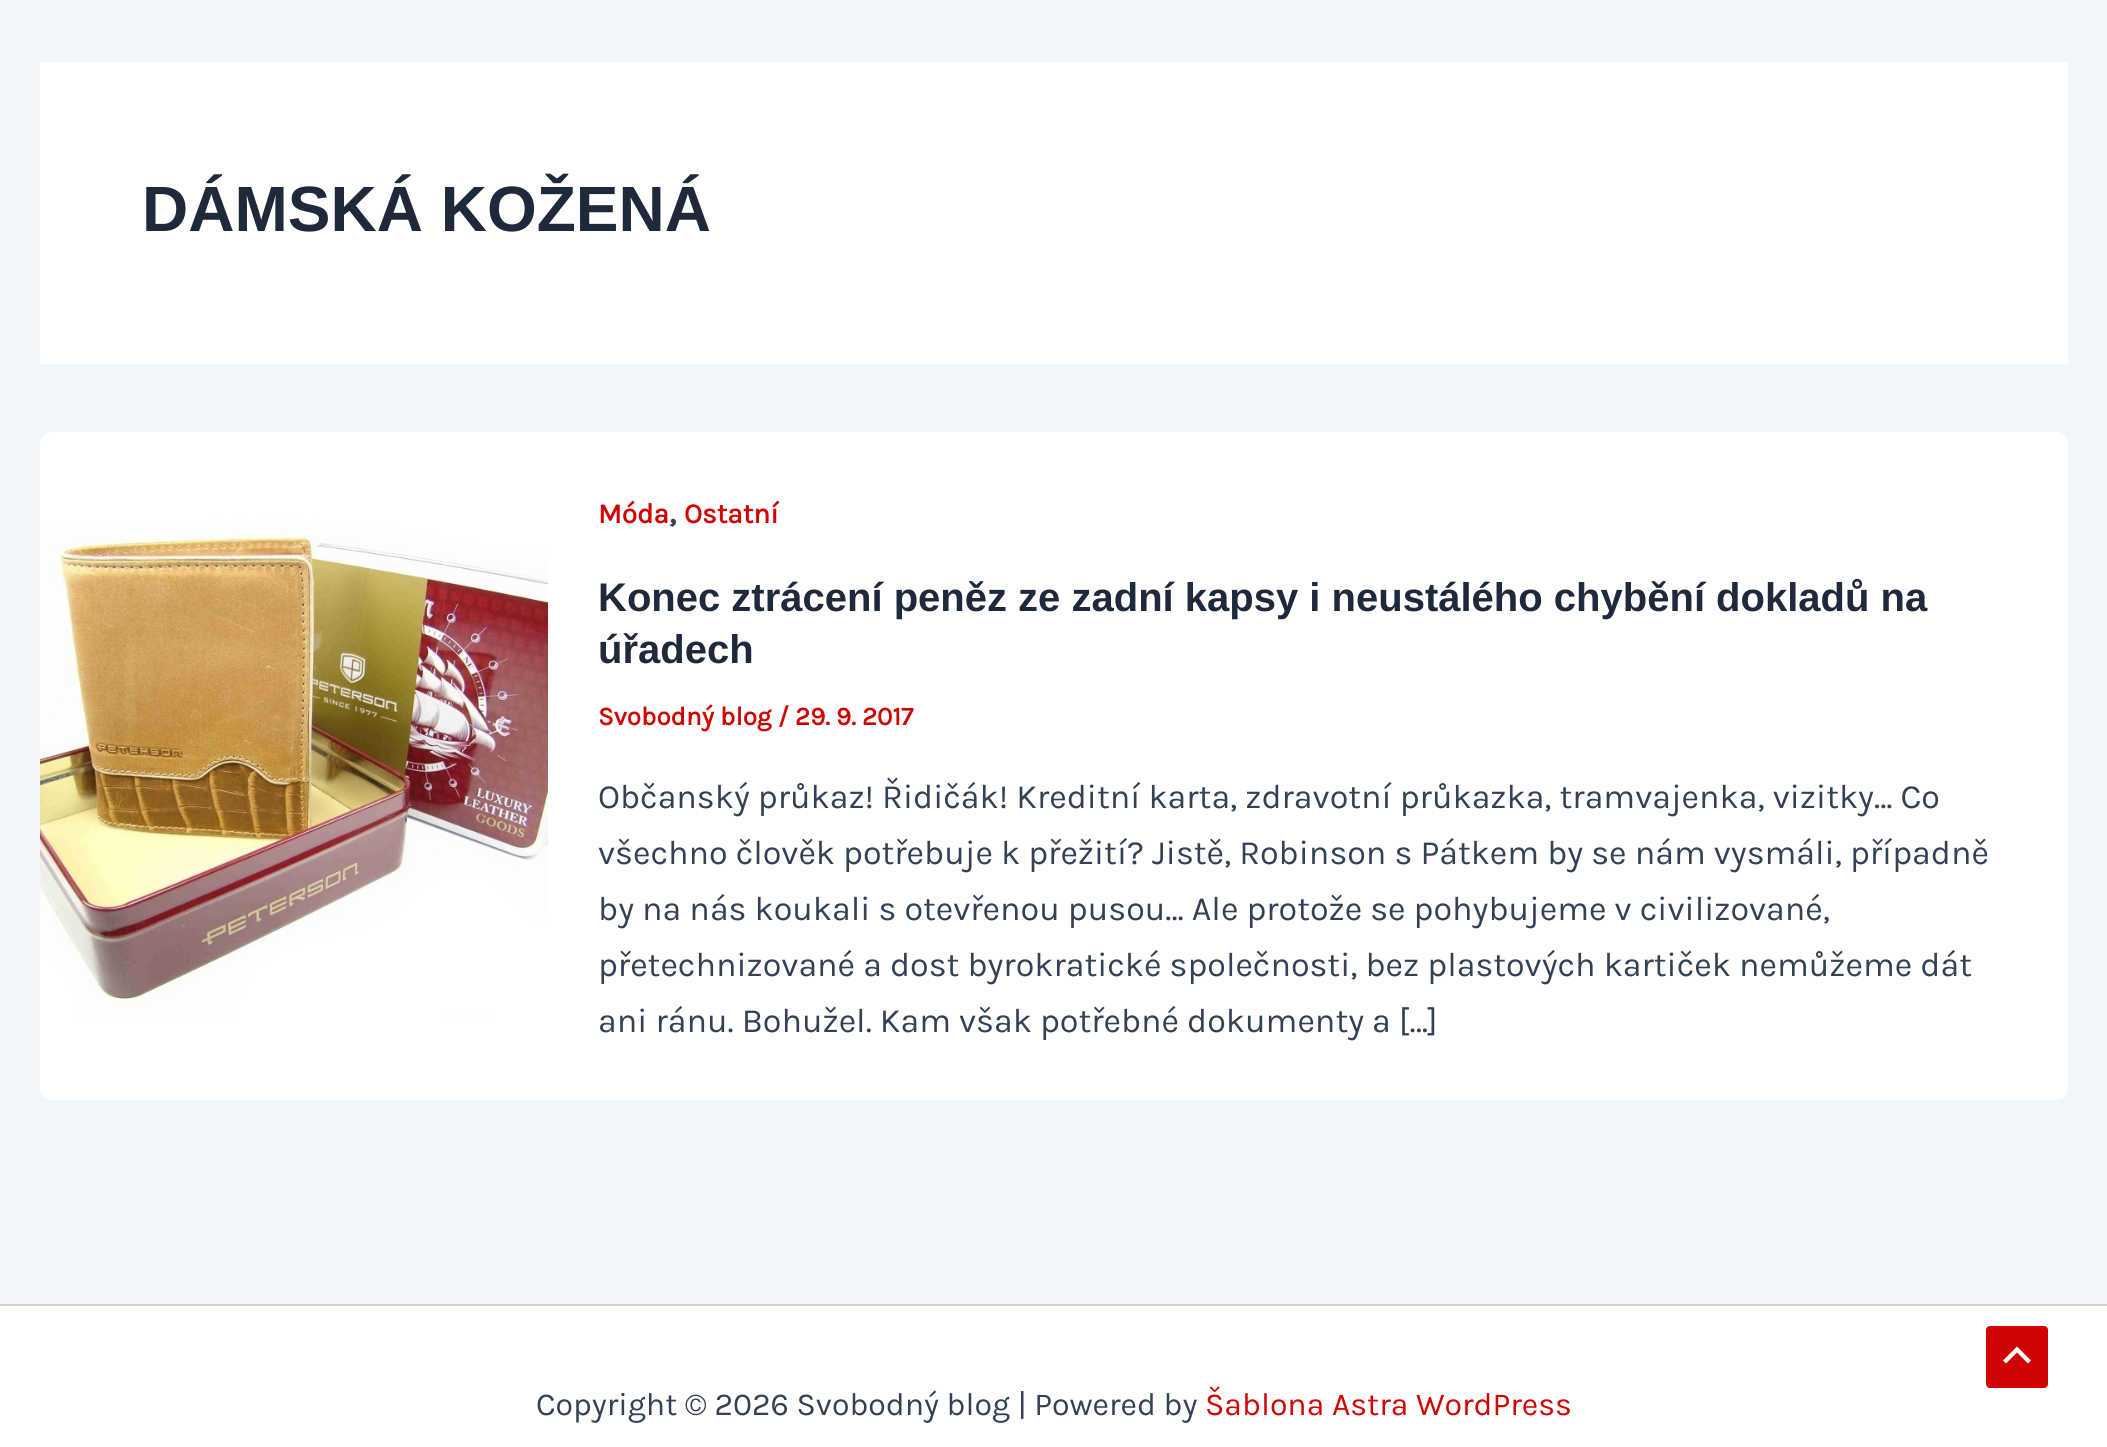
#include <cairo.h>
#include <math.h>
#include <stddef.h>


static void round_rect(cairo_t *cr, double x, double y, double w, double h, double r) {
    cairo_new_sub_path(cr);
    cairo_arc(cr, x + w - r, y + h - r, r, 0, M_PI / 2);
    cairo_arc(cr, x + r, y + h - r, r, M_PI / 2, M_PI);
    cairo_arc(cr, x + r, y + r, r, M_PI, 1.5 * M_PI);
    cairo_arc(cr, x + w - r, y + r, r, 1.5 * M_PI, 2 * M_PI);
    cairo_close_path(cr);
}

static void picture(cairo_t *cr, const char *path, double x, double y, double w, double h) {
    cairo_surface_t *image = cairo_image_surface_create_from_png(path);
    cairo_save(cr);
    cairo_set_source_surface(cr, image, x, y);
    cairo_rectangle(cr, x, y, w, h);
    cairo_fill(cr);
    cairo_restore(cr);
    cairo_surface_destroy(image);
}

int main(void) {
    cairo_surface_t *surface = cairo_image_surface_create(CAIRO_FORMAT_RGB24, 2107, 1447);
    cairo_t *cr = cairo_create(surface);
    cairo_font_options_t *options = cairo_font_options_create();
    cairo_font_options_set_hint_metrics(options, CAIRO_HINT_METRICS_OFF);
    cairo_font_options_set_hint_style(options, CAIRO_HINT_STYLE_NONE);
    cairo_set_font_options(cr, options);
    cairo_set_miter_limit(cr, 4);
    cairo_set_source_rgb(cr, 0.941, 0.961, 0.98);
    cairo_paint(cr);
    cairo_set_source_rgb(cr, 1, 1, 1);
    cairo_rectangle(cr, 40, 62, 2028, 302);
    cairo_fill(cr);
    cairo_select_font_face(cr, "Liberation Sans", CAIRO_FONT_SLANT_NORMAL, CAIRO_FONT_WEIGHT_BOLD);
    cairo_set_font_size(cr, 64);
    cairo_set_source_rgb(cr, 0.118, 0.161, 0.231);
    cairo_move_to(cr, 142, 231);
    cairo_show_text(cr, "DÁMSKÁ KOŽENÁ");
    cairo_set_source_rgb(cr, 1, 1, 1);
    round_rect(cr, 40, 432, 2028, 668, 12);
    cairo_fill(cr);
    picture(cr, "img1.png", 40, 435, 508, 665);
    cairo_select_font_face(cr, "Karla", CAIRO_FONT_SLANT_NORMAL, CAIRO_FONT_WEIGHT_BOLD);
    cairo_set_font_size(cr, 28);
    cairo_set_source_rgb(cr, 0.82, 0.016, 0.016);
    cairo_move_to(cr, 598, 523);
    cairo_show_text(cr, "Móda");
    cairo_set_font_size(cr, 34);
    cairo_set_source_rgb(cr, 0.2, 0.255, 0.333);
    cairo_move_to(cr, 669, 523);
    cairo_show_text(cr, ",");
    cairo_set_font_size(cr, 28);
    cairo_set_source_rgb(cr, 0.82, 0.016, 0.016);
    cairo_move_to(cr, 684, 523);
    cairo_show_text(cr, "Ostatní");
    cairo_select_font_face(cr, "Liberation Sans", CAIRO_FONT_SLANT_NORMAL, CAIRO_FONT_WEIGHT_BOLD);
    cairo_set_font_size(cr, 40);
    cairo_set_source_rgb(cr, 0.118, 0.161, 0.231);
    cairo_move_to(cr, 598, 611);
    cairo_show_text(cr, "Konec ztrácení peněz ze zadní kapsy i neustálého chybění dokladů na");
    cairo_move_to(cr, 598, 663);
    cairo_show_text(cr, "úřadech");
    cairo_select_font_face(cr, "Karla", CAIRO_FONT_SLANT_NORMAL, CAIRO_FONT_WEIGHT_BOLD);
    cairo_set_font_size(cr, 26);
    cairo_set_source_rgb(cr, 0.82, 0.016, 0.016);
    cairo_move_to(cr, 598, 725);
    cairo_show_text(cr, "Svobodný blog / 29. 9. 2017");
    cairo_select_font_face(cr, "Karla", CAIRO_FONT_SLANT_NORMAL, CAIRO_FONT_WEIGHT_NORMAL);
    cairo_set_font_size(cr, 34);
    cairo_set_source_rgb(cr, 0.2, 0.255, 0.333);
    cairo_move_to(cr, 598, 808);
    cairo_show_text(cr, "Občanský průkaz! Řidičák! Kreditní karta, zdravotní průkazka, tramvajenka, vizitky… Co");
    cairo_move_to(cr, 598, 864);
    cairo_show_text(cr, "všechno člověk potřebuje k přežití? Jistě, Robinson s Pátkem by se nám vysmáli, případně");
    cairo_move_to(cr, 598, 920);
    cairo_show_text(cr, "by na nás koukali s otevřenou pusou… Ale protože se pohybujeme v civilizované,");
    cairo_move_to(cr, 598, 976);
    cairo_show_text(cr, "přetechnizované a dost byrokratické společnosti, bez plastových kartiček nemůžeme dát");
    cairo_move_to(cr, 598, 1032);
    cairo_show_text(cr, "ani ránu. Bohužel. Kam však potřebné dokumenty a […]");
    cairo_set_source_rgb(cr, 1, 1, 1);
    cairo_rectangle(cr, 0, 1306, 2107, 141);
    cairo_fill(cr);
    cairo_set_source_rgb(cr, 0.82, 0.835, 0.859);
    cairo_rectangle(cr, 0, 1304, 2107, 2);
    cairo_fill(cr);
    cairo_set_font_size(cr, 32);
    cairo_set_source_rgb(cr, 0.2, 0.255, 0.333);
    cairo_move_to(cr, 536, 1415);
    cairo_show_text(cr, "Copyright © 2026 Svobodný blog | Powered by");
    cairo_set_source_rgb(cr, 0.82, 0.016, 0.016);
    cairo_move_to(cr, 1205, 1415);
    cairo_show_text(cr, "Šablona Astra WordPress");
    round_rect(cr, 1986, 1326, 62, 62, 4);
    cairo_fill(cr);
    cairo_set_source_rgb(cr, 1, 1, 1);
    cairo_new_path(cr);
    cairo_move_to(cr, 2031, 1360.5);
    cairo_line_to(cr, 2017, 1346.5);
    cairo_line_to(cr, 2003, 1360.5);
    cairo_line_to(cr, 2006, 1363.5);
    cairo_line_to(cr, 2017, 1352.5);
    cairo_line_to(cr, 2028, 1363.5);
    cairo_close_path(cr);
    cairo_fill(cr);
    cairo_surface_write_to_png(surface, "page.png");
    cairo_font_options_destroy(options);
    cairo_destroy(cr);
    cairo_surface_destroy(surface);
    return 0;
}
